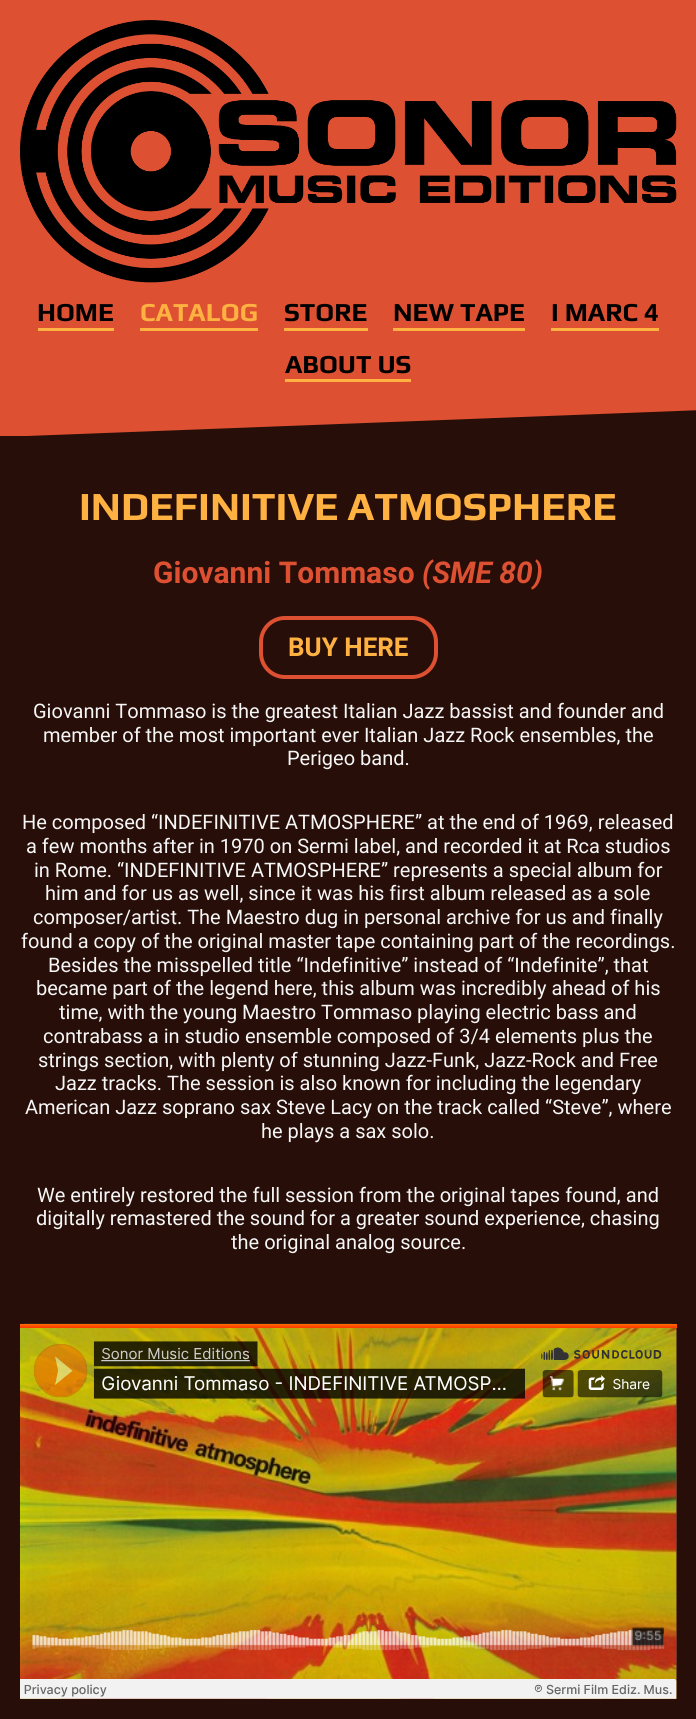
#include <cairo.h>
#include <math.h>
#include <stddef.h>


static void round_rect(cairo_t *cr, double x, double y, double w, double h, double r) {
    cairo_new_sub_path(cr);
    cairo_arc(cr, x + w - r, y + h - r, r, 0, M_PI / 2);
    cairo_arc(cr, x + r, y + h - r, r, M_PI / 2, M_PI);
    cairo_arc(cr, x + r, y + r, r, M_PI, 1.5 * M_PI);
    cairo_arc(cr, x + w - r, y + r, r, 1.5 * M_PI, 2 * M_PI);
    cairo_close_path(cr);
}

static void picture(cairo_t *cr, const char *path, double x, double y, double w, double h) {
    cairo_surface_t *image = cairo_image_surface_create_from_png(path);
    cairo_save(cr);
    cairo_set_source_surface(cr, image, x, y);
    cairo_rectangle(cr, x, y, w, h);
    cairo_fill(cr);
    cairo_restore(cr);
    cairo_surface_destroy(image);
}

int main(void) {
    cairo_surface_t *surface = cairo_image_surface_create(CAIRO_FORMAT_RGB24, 696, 1719);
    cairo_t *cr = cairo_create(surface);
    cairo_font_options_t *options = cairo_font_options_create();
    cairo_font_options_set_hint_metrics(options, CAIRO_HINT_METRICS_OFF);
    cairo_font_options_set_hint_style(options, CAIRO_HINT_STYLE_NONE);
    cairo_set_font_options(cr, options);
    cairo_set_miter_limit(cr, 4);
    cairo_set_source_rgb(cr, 0.867, 0.314, 0.196);
    cairo_paint(cr);
    picture(cr, "img1.png", 20, 20, 657, 263);
    cairo_select_font_face(cr, "Play", CAIRO_FONT_SLANT_NORMAL, CAIRO_FONT_WEIGHT_BOLD);
    cairo_set_font_size(cr, 26);
    cairo_set_source_rgb(cr, 0, 0, 0);
    cairo_move_to(cr, 37, 321);
    cairo_show_text(cr, "HOME");
    cairo_set_source_rgb(cr, 1, 0.698, 0.255);
    cairo_rectangle(cr, 38, 328, 76, 3);
    cairo_fill(cr);
    cairo_move_to(cr, 140, 321);
    cairo_show_text(cr, "CATALOG");
    cairo_rectangle(cr, 140, 328, 118, 3);
    cairo_fill(cr);
    cairo_set_source_rgb(cr, 0, 0, 0);
    cairo_move_to(cr, 284, 321);
    cairo_show_text(cr, "STORE");
    cairo_set_source_rgb(cr, 1, 0.698, 0.255);
    cairo_rectangle(cr, 284, 328, 84, 3);
    cairo_fill(cr);
    cairo_set_source_rgb(cr, 0, 0, 0);
    cairo_move_to(cr, 393, 321);
    cairo_show_text(cr, "NEW TAPE");
    cairo_set_source_rgb(cr, 1, 0.698, 0.255);
    cairo_rectangle(cr, 393, 328, 132, 3);
    cairo_fill(cr);
    cairo_set_source_rgb(cr, 0, 0, 0);
    cairo_move_to(cr, 551, 321);
    cairo_show_text(cr, "I MARC 4");
    cairo_set_source_rgb(cr, 1, 0.698, 0.255);
    cairo_rectangle(cr, 551, 328, 108, 3);
    cairo_fill(cr);
    cairo_set_source_rgb(cr, 0, 0, 0);
    cairo_move_to(cr, 285, 373);
    cairo_show_text(cr, "ABOUT US");
    cairo_set_source_rgb(cr, 1, 0.698, 0.255);
    cairo_rectangle(cr, 285, 379, 126, 3);
    cairo_fill(cr);
    cairo_save(cr);
    cairo_rectangle(cr, 0, 410, 696, 26);
    cairo_clip(cr);
    cairo_set_source_rgb(cr, 0.153, 0.055, 0.035);
    cairo_new_path(cr);
    cairo_move_to(cr, 0, 437);
    cairo_line_to(cr, 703, 410);
    cairo_line_to(cr, 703, 437);
    cairo_close_path(cr);
    cairo_fill(cr);
    cairo_restore(cr);
    cairo_set_source_rgb(cr, 0.153, 0.055, 0.035);
    cairo_rectangle(cr, 0, 436, 696, 1283);
    cairo_fill(cr);
    cairo_set_font_size(cr, 40);
    cairo_set_source_rgb(cr, 1, 0.698, 0.255);
    cairo_move_to(cr, 79, 520);
    cairo_show_text(cr, "INDEFINITIVE ATMOSPHERE");
    cairo_select_font_face(cr, "Roboto", CAIRO_FONT_SLANT_NORMAL, CAIRO_FONT_WEIGHT_BOLD);
    cairo_set_font_size(cr, 30);
    cairo_set_source_rgb(cr, 0.867, 0.314, 0.196);
    cairo_move_to(cr, 153, 583);
    cairo_show_text(cr, "Giovanni Tommaso");
    cairo_select_font_face(cr, "Roboto", CAIRO_FONT_SLANT_ITALIC, CAIRO_FONT_WEIGHT_BOLD);
    cairo_move_to(cr, 422, 583);
    cairo_show_text(cr, "(SME 80)");
    round_rect(cr, 261, 618, 175, 59, 24);
    cairo_set_line_width(cr, 4);
    cairo_stroke(cr);
    cairo_select_font_face(cr, "Roboto", CAIRO_FONT_SLANT_NORMAL, CAIRO_FONT_WEIGHT_BOLD);
    cairo_set_font_size(cr, 26);
    cairo_set_source_rgb(cr, 1, 0.698, 0.255);
    cairo_move_to(cr, 288, 656);
    cairo_show_text(cr, "BUY HERE");
    cairo_select_font_face(cr, "Roboto", CAIRO_FONT_SLANT_NORMAL, CAIRO_FONT_WEIGHT_NORMAL);
    cairo_set_font_size(cr, 20);
    cairo_set_source_rgb(cr, 0.961, 0.961, 0.961);
    cairo_move_to(cr, 33, 718);
    cairo_show_text(cr, "Giovanni Tommaso is the greatest Italian Jazz bassist and founder and");
    cairo_move_to(cr, 43, 742);
    cairo_show_text(cr, "member of the most important ever Italian Jazz Rock ensembles, the");
    cairo_move_to(cr, 287, 765);
    cairo_show_text(cr, "Perigeo band.");
    cairo_move_to(cr, 22, 829);
    cairo_show_text(cr, "He composed “INDEFINITIVE ATMOSPHERE” at the end of 1969, released");
    cairo_move_to(cr, 26, 853);
    cairo_show_text(cr, "a few months after in 1970 on Sermi label, and recorded it at Rca studios");
    cairo_move_to(cr, 34, 877);
    cairo_show_text(cr, "in Rome. “INDEFINITIVE ATMOSPHERE” represents a special album for");
    cairo_move_to(cr, 45, 900);
    cairo_show_text(cr, "him and for us as well, since it was his first album released as a sole");
    cairo_move_to(cr, 33, 924);
    cairo_show_text(cr, "composer/artist. The Maestro dug in personal archive for us and finally");
    cairo_move_to(cr, 21, 948);
    cairo_show_text(cr, "found a copy of the original master tape containing part of the recordings.");
    cairo_move_to(cr, 48, 972);
    cairo_show_text(cr, "Besides the misspelled title “Indefinitive” instead of “Indefinite”, that");
    cairo_move_to(cr, 36, 995);
    cairo_show_text(cr, "became part of the legend here, this album was incredibly ahead of his");
    cairo_move_to(cr, 59, 1019);
    cairo_show_text(cr, "time, with the young Maestro Tommaso playing electric bass and");
    cairo_move_to(cr, 43, 1043);
    cairo_show_text(cr, "contrabass a in studio ensemble composed of 3/4 elements plus the");
    cairo_move_to(cr, 38, 1067);
    cairo_show_text(cr, "strings section, with plenty of stunning Jazz-Funk, Jazz-Rock and Free");
    cairo_move_to(cr, 55, 1090);
    cairo_show_text(cr, "Jazz tracks. The session is also known for including the legendary");
    cairo_move_to(cr, 25, 1114);
    cairo_show_text(cr, "American Jazz soprano sax Steve Lacy on the track called “Steve”, where");
    cairo_move_to(cr, 261, 1138);
    cairo_show_text(cr, "he plays a sax solo.");
    cairo_move_to(cr, 37, 1202);
    cairo_show_text(cr, "We entirely restored the full session from the original tapes found, and");
    cairo_move_to(cr, 36, 1225);
    cairo_show_text(cr, "digitally remastered the sound for a greater sound experience, chasing");
    cairo_move_to(cr, 231, 1249);
    cairo_show_text(cr, "the original analog source.");
    picture(cr, "img2.png", 20, 1323, 657, 376);
    cairo_surface_write_to_png(surface, "page.png");
    cairo_font_options_destroy(options);
    cairo_destroy(cr);
    cairo_surface_destroy(surface);
    return 0;
}
